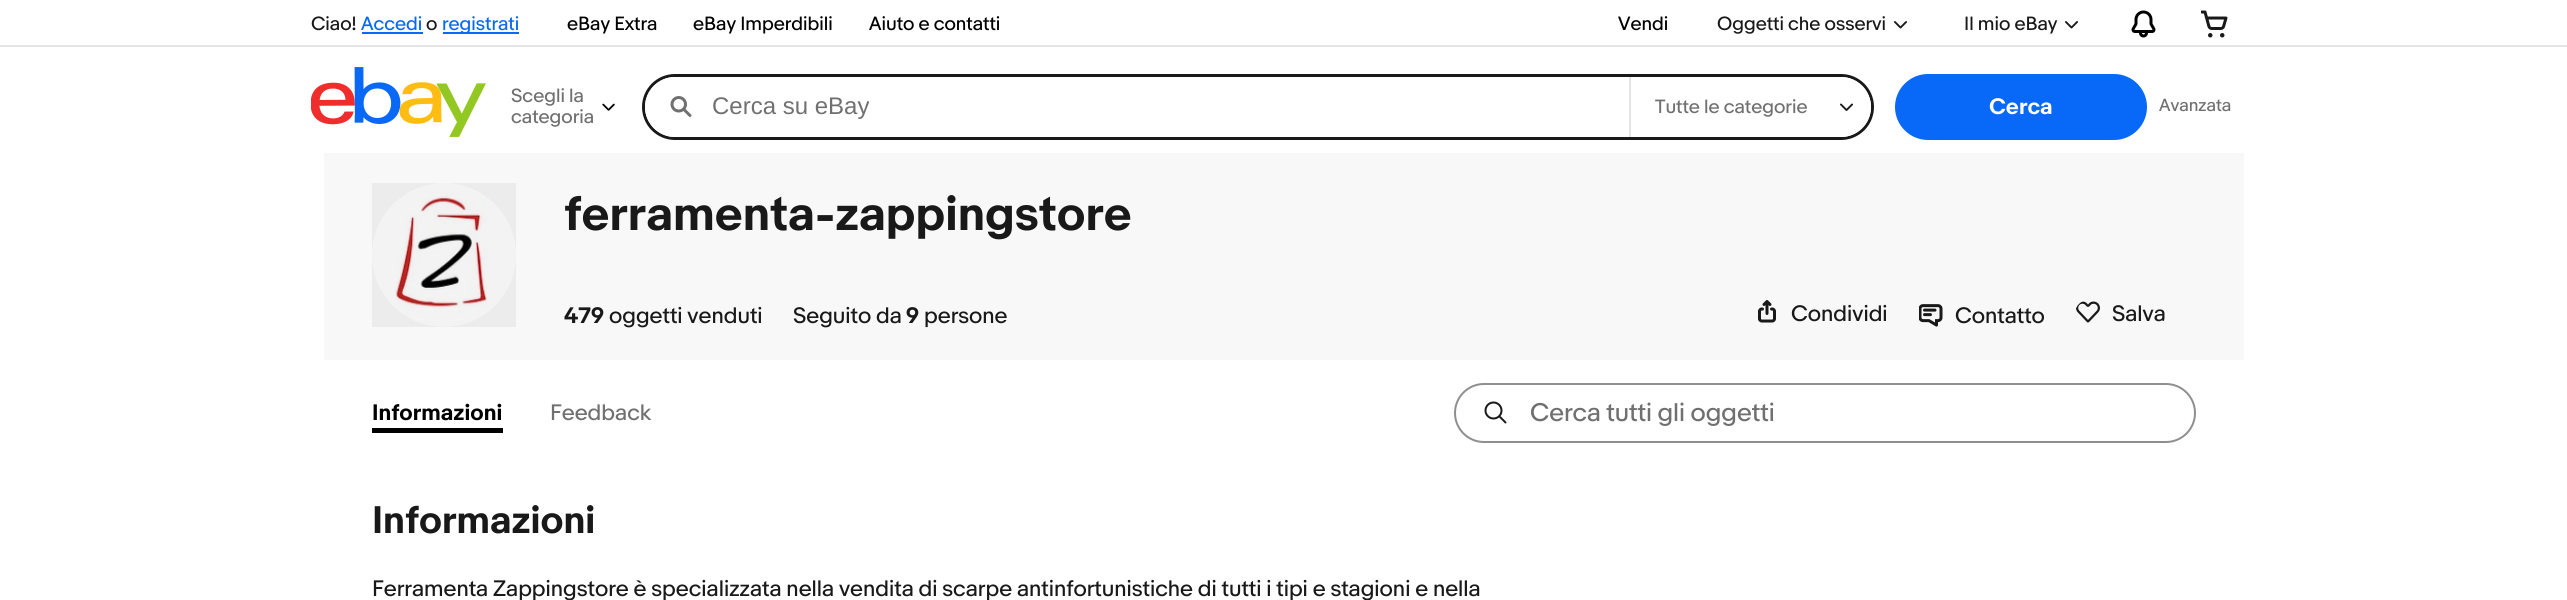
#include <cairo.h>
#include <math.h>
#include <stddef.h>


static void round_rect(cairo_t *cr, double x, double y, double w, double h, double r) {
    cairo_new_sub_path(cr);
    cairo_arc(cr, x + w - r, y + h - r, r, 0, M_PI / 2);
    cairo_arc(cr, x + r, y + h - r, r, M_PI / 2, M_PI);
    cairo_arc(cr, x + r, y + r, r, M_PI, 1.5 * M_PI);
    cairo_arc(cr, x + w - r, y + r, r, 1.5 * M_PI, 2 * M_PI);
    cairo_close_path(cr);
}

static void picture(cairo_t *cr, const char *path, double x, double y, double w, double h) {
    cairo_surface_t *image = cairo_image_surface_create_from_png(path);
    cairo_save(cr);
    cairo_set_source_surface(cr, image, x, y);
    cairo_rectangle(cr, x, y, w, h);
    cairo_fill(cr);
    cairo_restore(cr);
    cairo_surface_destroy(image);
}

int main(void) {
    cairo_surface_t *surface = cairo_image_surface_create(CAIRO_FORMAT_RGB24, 2567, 600);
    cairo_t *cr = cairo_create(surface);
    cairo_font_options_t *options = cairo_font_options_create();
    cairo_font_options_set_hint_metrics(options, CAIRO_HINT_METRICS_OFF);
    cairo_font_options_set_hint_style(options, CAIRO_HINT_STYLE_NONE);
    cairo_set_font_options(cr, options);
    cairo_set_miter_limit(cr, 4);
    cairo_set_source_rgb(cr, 1, 1, 1);
    cairo_paint(cr);
    cairo_select_font_face(cr, "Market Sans", CAIRO_FONT_SLANT_NORMAL, CAIRO_FONT_WEIGHT_NORMAL);
    cairo_set_font_size(cr, 18);
    cairo_set_source_rgb(cr, 0.098, 0.098, 0.098);
    cairo_move_to(cr, 311, 30);
    cairo_show_text(cr, "Ciao!");
    cairo_set_source_rgb(cr, 0.035, 0.408, 0.965);
    cairo_move_to(cr, 361, 30);
    cairo_show_text(cr, "Accedi");
    cairo_rectangle(cr, 362, 32, 61, 2);
    cairo_fill(cr);
    cairo_set_source_rgb(cr, 0.098, 0.098, 0.098);
    cairo_move_to(cr, 426, 30);
    cairo_show_text(cr, "o");
    cairo_set_source_rgb(cr, 0.035, 0.408, 0.965);
    cairo_rectangle(cr, 443, 32, 76, 2);
    cairo_fill(cr);
    cairo_move_to(cr, 442, 30);
    cairo_show_text(cr, "registrati");
    cairo_set_source_rgb(cr, 0, 0, 0);
    cairo_move_to(cr, 567, 30);
    cairo_show_text(cr, "eBay Extra");
    cairo_move_to(cr, 693, 30);
    cairo_show_text(cr, "eBay Imperdibili");
    cairo_move_to(cr, 869, 30);
    cairo_show_text(cr, "Aiuto e contatti");
    cairo_move_to(cr, 1618, 30);
    cairo_show_text(cr, "Vendi");
    cairo_set_source_rgb(cr, 0.098, 0.098, 0.098);
    cairo_move_to(cr, 1717, 30);
    cairo_show_text(cr, "Oggetti che osservi");
    picture(cr, "img1.png", 1894, 21, 13, 8);
    cairo_move_to(cr, 1964, 30);
    cairo_show_text(cr, "Il mio eBay");
    picture(cr, "img1.png", 2065, 21, 13, 8);
    picture(cr, "img2.png", 2131, 10, 25, 28);
    picture(cr, "img3.png", 2201, 10, 27, 28);
    picture(cr, "img4.png", 311, 67, 175, 70);
    cairo_set_source_rgb(cr, 0.439, 0.439, 0.439);
    cairo_move_to(cr, 511, 102);
    cairo_show_text(cr, "Scegli la");
    cairo_move_to(cr, 511, 123);
    cairo_show_text(cr, "categoria");
    picture(cr, "img5.png", 602, 103, 13, 8);
    round_rect(cr, 643.5, 75.5, 1229, 63, 31.5);
    cairo_set_source_rgb(cr, 0.098, 0.098, 0.098);
    cairo_set_line_width(cr, 3);
    cairo_stroke(cr);
    cairo_set_source_rgb(cr, 0.898, 0.898, 0.898);
    cairo_rectangle(cr, 1629, 77, 2, 60);
    cairo_fill(cr);
    cairo_set_source_rgb(cr, 1, 1, 1);
    cairo_new_path(cr);
    cairo_move_to(cr, 675, 77);
    cairo_line_to(cr, 1629, 77);
    cairo_line_to(cr, 1629, 137);
    cairo_line_to(cr, 675, 137);
    cairo_curve_to(cr, 658.5, 137, 645, 123.5, 645, 107);
    cairo_curve_to(cr, 645, 90.5, 658.5, 77, 675, 77);
    cairo_close_path(cr);
    cairo_fill(cr);
    picture(cr, "img6.png", 670, 96, 22, 21);
    cairo_select_font_face(cr, "Liberation Sans", CAIRO_FONT_SLANT_NORMAL, CAIRO_FONT_WEIGHT_NORMAL);
    cairo_set_font_size(cr, 24);
    cairo_set_source_rgb(cr, 0.439, 0.439, 0.439);
    cairo_move_to(cr, 712, 114);
    cairo_show_text(cr, "Cerca su eBay");
    cairo_set_source_rgb(cr, 1, 1, 1);
    cairo_new_path(cr);
    cairo_move_to(cr, 1631, 77);
    cairo_line_to(cr, 1841, 77);
    cairo_curve_to(cr, 1857.5, 77, 1871, 90.5, 1871, 107);
    cairo_curve_to(cr, 1871, 123.5, 1857.5, 137, 1841, 137);
    cairo_line_to(cr, 1631, 137);
    cairo_close_path(cr);
    cairo_fill(cr);
    picture(cr, "img7.png", 1840, 103, 13, 8);
    cairo_select_font_face(cr, "Market Sans", CAIRO_FONT_SLANT_NORMAL, CAIRO_FONT_WEIGHT_NORMAL);
    cairo_set_font_size(cr, 18);
    cairo_set_source_rgb(cr, 0.439, 0.439, 0.439);
    cairo_move_to(cr, 1655, 113);
    cairo_show_text(cr, "Tutte le categorie");
    cairo_set_source_rgb(cr, 0.035, 0.408, 0.965);
    round_rect(cr, 1896, 75, 250, 64, 32);
    cairo_fill_preserve(cr);
    cairo_set_line_width(cr, 2);
    cairo_stroke(cr);
    cairo_select_font_face(cr, "Market Sans", CAIRO_FONT_SLANT_NORMAL, CAIRO_FONT_WEIGHT_BOLD);
    cairo_set_font_size(cr, 21);
    cairo_set_source_rgb(cr, 1, 1, 1);
    cairo_move_to(cr, 1989, 114);
    cairo_show_text(cr, "Cerca");
    cairo_select_font_face(cr, "Market Sans", CAIRO_FONT_SLANT_NORMAL, CAIRO_FONT_WEIGHT_NORMAL);
    cairo_set_font_size(cr, 16.5);
    cairo_set_source_rgb(cr, 0.439, 0.439, 0.439);
    cairo_move_to(cr, 2159, 111);
    cairo_show_text(cr, "Avanzata");
    cairo_set_source_rgb(cr, 0.898, 0.898, 0.898);
    cairo_rectangle(cr, 0, 45, 2567, 2);
    cairo_fill(cr);
    cairo_set_source_rgb(cr, 0.969, 0.969, 0.969);
    cairo_rectangle(cr, 324, 153, 1920, 207);
    cairo_fill(cr);
    picture(cr, "img8.png", 372, 183, 144, 144);
    cairo_set_source_rgba(cr, 0, 0, 0, 0.05);
    cairo_rectangle(cr, 372, 183, 144, 144);
    cairo_fill(cr);
    cairo_select_font_face(cr, "Market Sans", CAIRO_FONT_SLANT_NORMAL, CAIRO_FONT_WEIGHT_BOLD);
    cairo_set_font_size(cr, 45);
    cairo_set_source_rgb(cr, 0.098, 0.098, 0.098);
    cairo_move_to(cr, 564, 230);
    cairo_show_text(cr, "ferramenta-zappingstore");
    cairo_set_font_size(cr, 21);
    cairo_move_to(cr, 564, 323);
    cairo_show_text(cr, "479");
    cairo_select_font_face(cr, "Market Sans", CAIRO_FONT_SLANT_NORMAL, CAIRO_FONT_WEIGHT_NORMAL);
    cairo_move_to(cr, 609, 323);
    cairo_show_text(cr, "oggetti venduti");
    cairo_move_to(cr, 793, 323);
    cairo_show_text(cr, "Seguito da");
    cairo_select_font_face(cr, "Market Sans", CAIRO_FONT_SLANT_NORMAL, CAIRO_FONT_WEIGHT_BOLD);
    cairo_move_to(cr, 906, 323);
    cairo_show_text(cr, "9");
    cairo_select_font_face(cr, "Market Sans", CAIRO_FONT_SLANT_NORMAL, CAIRO_FONT_WEIGHT_NORMAL);
    cairo_move_to(cr, 924, 323);
    cairo_show_text(cr, "persone");
    picture(cr, "img9.png", 1758, 300, 18, 23);
    cairo_move_to(cr, 1791, 321);
    cairo_show_text(cr, "Condividi");
    picture(cr, "img10.png", 1919, 304, 24, 23);
    cairo_move_to(cr, 1955, 323);
    cairo_show_text(cr, "Contatto");
    picture(cr, "img11.png", 2076, 301, 24, 22);
    cairo_save(cr);
    round_rect(cr, 2075, 300, 91, 27, 13.5);
    cairo_clip(cr);
    cairo_move_to(cr, 2112, 321);
    cairo_show_text(cr, "Salva");
    cairo_restore(cr);
    cairo_set_source_rgb(cr, 0, 0, 0);
    cairo_rectangle(cr, 372, 428, 131, 5);
    cairo_fill(cr);
    cairo_select_font_face(cr, "Market Sans", CAIRO_FONT_SLANT_NORMAL, CAIRO_FONT_WEIGHT_BOLD);
    cairo_move_to(cr, 372, 420);
    cairo_show_text(cr, "Informazioni");
    cairo_select_font_face(cr, "Market Sans", CAIRO_FONT_SLANT_NORMAL, CAIRO_FONT_WEIGHT_NORMAL);
    cairo_set_source_rgb(cr, 0.439, 0.439, 0.439);
    cairo_move_to(cr, 550, 420);
    cairo_show_text(cr, "Feedback");
    round_rect(cr, 1455, 384, 740, 58, 29);
    cairo_set_source_rgb(cr, 0.561, 0.561, 0.561);
    cairo_stroke(cr);
    picture(cr, "img12.png", 1484, 401, 23, 23);
    cairo_set_font_size(cr, 24);
    cairo_set_source_rgb(cr, 0.439, 0.439, 0.439);
    cairo_move_to(cr, 1530, 421);
    cairo_show_text(cr, "Cerca tutti gli oggetti");
    cairo_select_font_face(cr, "Market Sans", CAIRO_FONT_SLANT_NORMAL, CAIRO_FONT_WEIGHT_BOLD);
    cairo_set_font_size(cr, 36);
    cairo_set_source_rgb(cr, 0.098, 0.098, 0.098);
    cairo_move_to(cr, 372, 533);
    cairo_show_text(cr, "Informazioni");
    cairo_select_font_face(cr, "Market Sans", CAIRO_FONT_SLANT_NORMAL, CAIRO_FONT_WEIGHT_NORMAL);
    cairo_set_font_size(cr, 21);
    cairo_move_to(cr, 372, 596);
    cairo_show_text(cr, "Ferramenta Zappingstore è specializzata nella vendita di scarpe antinfortunistiche di tutti i tipi e stagioni e nella");
    cairo_surface_write_to_png(surface, "page.png");
    cairo_font_options_destroy(options);
    cairo_destroy(cr);
    cairo_surface_destroy(surface);
    return 0;
}
